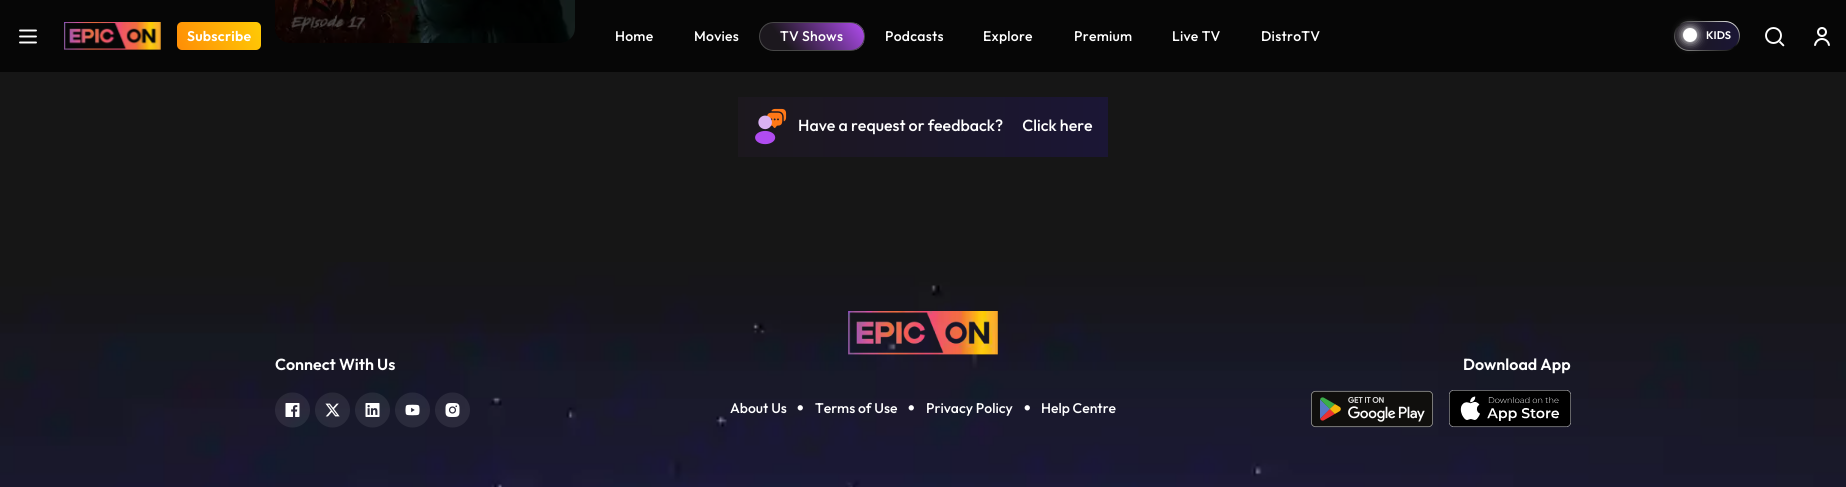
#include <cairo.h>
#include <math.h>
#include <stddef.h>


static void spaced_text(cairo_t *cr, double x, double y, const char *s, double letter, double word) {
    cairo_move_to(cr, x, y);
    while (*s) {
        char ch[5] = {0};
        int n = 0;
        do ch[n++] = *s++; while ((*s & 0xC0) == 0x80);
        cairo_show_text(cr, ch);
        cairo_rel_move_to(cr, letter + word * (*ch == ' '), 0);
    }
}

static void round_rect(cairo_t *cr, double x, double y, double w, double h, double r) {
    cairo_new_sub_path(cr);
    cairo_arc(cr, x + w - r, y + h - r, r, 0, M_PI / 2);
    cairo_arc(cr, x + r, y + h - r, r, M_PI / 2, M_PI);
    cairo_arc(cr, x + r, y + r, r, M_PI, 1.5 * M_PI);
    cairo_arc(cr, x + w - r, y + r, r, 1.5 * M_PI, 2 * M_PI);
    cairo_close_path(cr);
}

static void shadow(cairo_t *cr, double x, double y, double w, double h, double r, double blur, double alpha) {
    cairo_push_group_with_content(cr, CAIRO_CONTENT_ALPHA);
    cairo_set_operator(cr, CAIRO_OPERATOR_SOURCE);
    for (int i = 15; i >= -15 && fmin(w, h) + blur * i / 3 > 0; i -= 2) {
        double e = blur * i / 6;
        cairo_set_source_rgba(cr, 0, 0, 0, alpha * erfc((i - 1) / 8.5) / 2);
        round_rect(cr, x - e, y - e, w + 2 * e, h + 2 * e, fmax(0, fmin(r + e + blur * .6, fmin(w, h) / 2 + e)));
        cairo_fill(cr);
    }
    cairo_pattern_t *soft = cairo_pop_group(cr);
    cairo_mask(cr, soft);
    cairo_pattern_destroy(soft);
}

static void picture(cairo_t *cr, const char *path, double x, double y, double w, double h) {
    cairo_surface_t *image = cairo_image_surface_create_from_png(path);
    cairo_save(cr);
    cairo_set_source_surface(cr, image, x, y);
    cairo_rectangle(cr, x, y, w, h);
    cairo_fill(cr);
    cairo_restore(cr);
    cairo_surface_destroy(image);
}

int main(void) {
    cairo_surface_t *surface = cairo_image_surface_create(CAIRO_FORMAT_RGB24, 1846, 487);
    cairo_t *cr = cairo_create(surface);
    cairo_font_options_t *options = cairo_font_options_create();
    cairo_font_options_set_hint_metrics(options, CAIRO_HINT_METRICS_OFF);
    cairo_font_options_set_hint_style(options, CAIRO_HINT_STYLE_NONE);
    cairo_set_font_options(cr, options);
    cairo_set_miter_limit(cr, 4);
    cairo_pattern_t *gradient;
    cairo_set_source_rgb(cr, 0.086, 0.086, 0.086);
    cairo_paint(cr);
    cairo_set_source_rgb(cr, 0.024, 0.024, 0.024);
    cairo_rectangle(cr, 0, 0, 1846, 72);
    cairo_fill(cr);
    cairo_new_path(cr);
    cairo_move_to(cr, 20, 42.5);
    cairo_line_to(cr, 36, 42.5);
    cairo_move_to(cr, 20, 36.5);
    cairo_line_to(cr, 36, 36.5);
    cairo_move_to(cr, 20, 30.5);
    cairo_line_to(cr, 36, 30.5);
    cairo_set_source_rgb(cr, 1, 1, 1);
    cairo_set_line_width(cr, 1.9);
    cairo_set_line_cap(cr, CAIRO_LINE_CAP_ROUND);
    cairo_set_line_join(cr, CAIRO_LINE_JOIN_ROUND);
    cairo_stroke(cr);
    picture(cr, "img1.png", 64, 22, 97, 28);
    gradient = cairo_pattern_create_linear(178, 53, 260, 19);
    cairo_pattern_add_color_stop_rgba(gradient, 0, 1, 0.553, 0.024, 1);
    cairo_pattern_add_color_stop_rgba(gradient, 1, 1, 0.796, 0.02, 1);
    cairo_set_source(cr, gradient);
    cairo_pattern_destroy(gradient);
    round_rect(cr, 177, 22, 84, 28, 5);
    cairo_fill(cr);
    cairo_select_font_face(cr, "Outfit SemiBold", CAIRO_FONT_SLANT_NORMAL, CAIRO_FONT_WEIGHT_NORMAL);
    cairo_set_font_size(cr, 14);
    cairo_set_source_rgb(cr, 1, 1, 1);
    spaced_text(cr, 187, 41, "Subscribe", 0.25, 0);
    cairo_select_font_face(cr, "Outfit Medium", CAIRO_FONT_SLANT_NORMAL, CAIRO_FONT_WEIGHT_NORMAL);
    spaced_text(cr, 615, 41, "Home", 0.25, 0);
    spaced_text(cr, 694, 41, "Movies", 0.25, 0);
    cairo_save(cr);
    round_rect(cr, 759, 22, 106, 29, 14.5);
    cairo_clip(cr);
    gradient = cairo_pattern_create_linear(851, 6.2, 773, 67);
    cairo_pattern_add_color_stop_rgba(gradient, 0, 0.694, 0.298, 0.941, 1);
    cairo_pattern_add_color_stop_rgba(gradient, 0.76, 0.11, 0.094, 0.118, 1);
    cairo_set_source(cr, gradient);
    cairo_pattern_destroy(gradient);
    cairo_rectangle(cr, 760, 23, 104, 27);
    cairo_fill(cr);
    cairo_restore(cr);
    round_rect(cr, 759.5, 22.5, 105, 28, 14);
    cairo_set_source_rgb(cr, 0.278, 0.278, 0.278);
    cairo_set_line_width(cr, 1);
    cairo_set_line_cap(cr, CAIRO_LINE_CAP_BUTT);
    cairo_set_line_join(cr, CAIRO_LINE_JOIN_MITER);
    cairo_stroke(cr);
    cairo_set_source_rgb(cr, 1, 1, 1);
    spaced_text(cr, 780, 41, "TV Shows", 0.25, 0);
    spaced_text(cr, 885, 41, "Podcasts", 0.25, 0);
    spaced_text(cr, 983, 41, "Explore", 0.25, 0);
    spaced_text(cr, 1074, 41, "Premium", 0.25, 0);
    spaced_text(cr, 1172, 41, "Live TV", 0.25, 0);
    spaced_text(cr, 1261, 41, "DistroTV", 0.25, 0);
    gradient = cairo_pattern_create_linear(1716, 12, 1690, 79);
    cairo_pattern_add_color_stop_rgba(gradient, 0, 1, 1, 1, 1);
    cairo_pattern_add_color_stop_rgba(gradient, 0.36, 0.024, 0.024, 0.024, 1);
    cairo_pattern_add_color_stop_rgba(gradient, 1, 1, 1, 1, 1);
    cairo_set_source(cr, gradient);
    cairo_pattern_destroy(gradient);
    round_rect(cr, 1674, 21, 66, 30, 15);
    cairo_fill(cr);
    gradient = cairo_pattern_create_linear(1675, 36, 1739, 36);
    cairo_pattern_add_color_stop_rgba(gradient, 0, 0.11, 0.094, 0.118, 1);
    cairo_pattern_add_color_stop_rgba(gradient, 1, 0.106, 0.086, 0.208, 1);
    cairo_set_source(cr, gradient);
    cairo_pattern_destroy(gradient);
    round_rect(cr, 1675, 22, 64, 28, 14);
    cairo_fill(cr);
    cairo_set_source_rgb(cr, 1, 1, 1);
    shadow(cr, 1683, 28, 14, 14, 7, 5, 1);
    cairo_set_source_rgb(cr, 1, 1, 1);
    cairo_arc(cr, 1690, 35, 7, 0, 2 * M_PI);
    cairo_fill(cr);
    cairo_select_font_face(cr, "Outfit SemiBold", CAIRO_FONT_SLANT_NORMAL, CAIRO_FONT_WEIGHT_NORMAL);
    cairo_set_font_size(cr, 11);
    cairo_move_to(cr, 1706, 39);
    cairo_show_text(cr, "KIDS");
    picture(cr, "img2.png", 1765, 27, 20, 20);
    picture(cr, "img3.png", 1814, 27, 16, 19);
    picture(cr, "img4.png", 275, 0, 300, 43);
    gradient = cairo_pattern_create_linear(738, 127, 1108, 127);
    cairo_pattern_add_color_stop_rgba(gradient, 0, 0.11, 0.094, 0.118, 1);
    cairo_pattern_add_color_stop_rgba(gradient, 1, 0.106, 0.086, 0.208, 1);
    cairo_set_source(cr, gradient);
    cairo_pattern_destroy(gradient);
    cairo_rectangle(cr, 738, 97, 370, 60);
    cairo_fill(cr);
    picture(cr, "img5.png", 755, 108, 32, 37);
    cairo_select_font_face(cr, "Outfit Medium", CAIRO_FONT_SLANT_NORMAL, CAIRO_FONT_WEIGHT_NORMAL);
    cairo_set_font_size(cr, 16);
    cairo_set_source_rgb(cr, 1, 1, 1);
    cairo_move_to(cr, 798, 131);
    cairo_show_text(cr, "Have a request or feedback?      Click here");
    picture(cr, "img6.png", 0, 262, 1846, 225);
    picture(cr, "img7.png", 848, 311, 150, 44);
    cairo_select_font_face(cr, "Outfit SemiBold", CAIRO_FONT_SLANT_NORMAL, CAIRO_FONT_WEIGHT_NORMAL);
    cairo_move_to(cr, 275, 370);
    cairo_show_text(cr, "Connect With Us");
    picture(cr, "img8.png", 275, 392, 35, 36);
    picture(cr, "img9.png", 315, 392, 35, 36);
    picture(cr, "img10.png", 355, 392, 35, 36);
    picture(cr, "img11.png", 395, 392, 35, 36);
    picture(cr, "img12.png", 435, 392, 35, 36);
    cairo_move_to(cr, 1463, 370);
    cairo_show_text(cr, "Download App");
    picture(cr, "img13.png", 1311, 390, 122, 38);
    picture(cr, "img14.png", 1449, 390, 122, 38);
    cairo_select_font_face(cr, "Outfit Medium", CAIRO_FONT_SLANT_NORMAL, CAIRO_FONT_WEIGHT_NORMAL);
    cairo_set_font_size(cr, 14);
    cairo_move_to(cr, 730, 413);
    cairo_show_text(cr, "About Us");
    cairo_set_font_size(cr, 25);
    cairo_move_to(cr, 796, 417);
    cairo_show_text(cr, "•");
    cairo_set_font_size(cr, 14);
    cairo_move_to(cr, 815, 413);
    cairo_show_text(cr, "Terms of Use");
    cairo_set_font_size(cr, 25);
    cairo_move_to(cr, 907, 417);
    cairo_show_text(cr, "•");
    cairo_set_font_size(cr, 14);
    cairo_move_to(cr, 926, 413);
    cairo_show_text(cr, "Privacy Policy");
    cairo_set_font_size(cr, 25);
    cairo_move_to(cr, 1023, 417);
    cairo_show_text(cr, "•");
    cairo_set_font_size(cr, 14);
    cairo_move_to(cr, 1041, 413);
    cairo_show_text(cr, "Help Centre");
    cairo_surface_write_to_png(surface, "page.png");
    cairo_font_options_destroy(options);
    cairo_destroy(cr);
    cairo_surface_destroy(surface);
    return 0;
}
